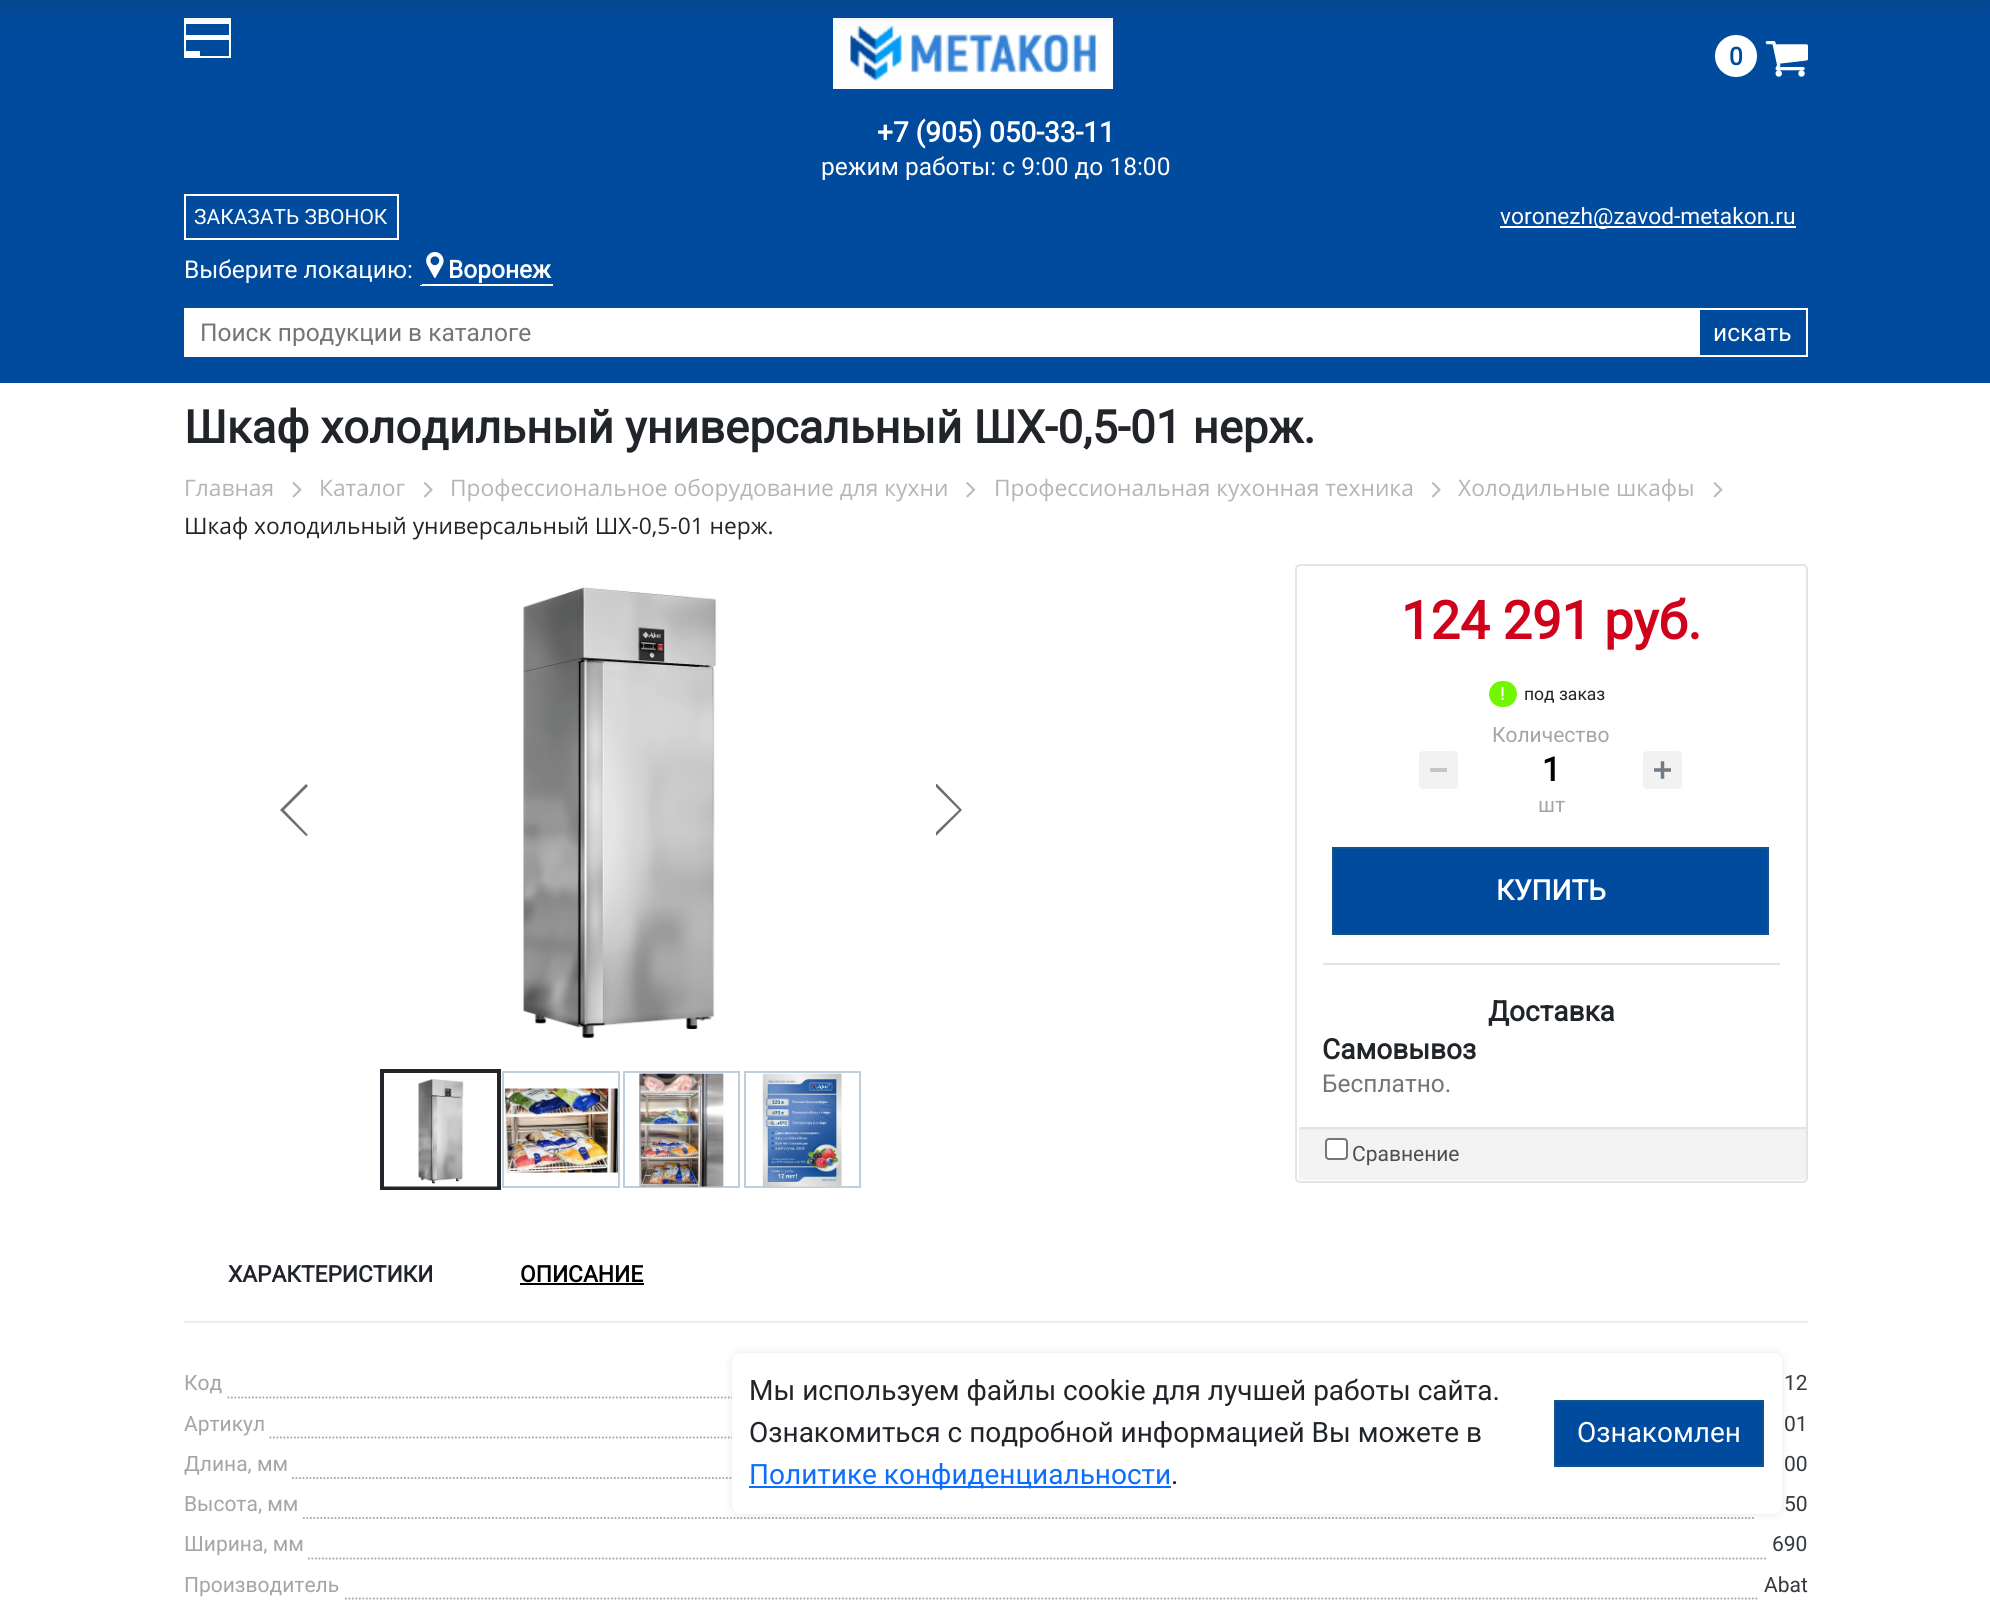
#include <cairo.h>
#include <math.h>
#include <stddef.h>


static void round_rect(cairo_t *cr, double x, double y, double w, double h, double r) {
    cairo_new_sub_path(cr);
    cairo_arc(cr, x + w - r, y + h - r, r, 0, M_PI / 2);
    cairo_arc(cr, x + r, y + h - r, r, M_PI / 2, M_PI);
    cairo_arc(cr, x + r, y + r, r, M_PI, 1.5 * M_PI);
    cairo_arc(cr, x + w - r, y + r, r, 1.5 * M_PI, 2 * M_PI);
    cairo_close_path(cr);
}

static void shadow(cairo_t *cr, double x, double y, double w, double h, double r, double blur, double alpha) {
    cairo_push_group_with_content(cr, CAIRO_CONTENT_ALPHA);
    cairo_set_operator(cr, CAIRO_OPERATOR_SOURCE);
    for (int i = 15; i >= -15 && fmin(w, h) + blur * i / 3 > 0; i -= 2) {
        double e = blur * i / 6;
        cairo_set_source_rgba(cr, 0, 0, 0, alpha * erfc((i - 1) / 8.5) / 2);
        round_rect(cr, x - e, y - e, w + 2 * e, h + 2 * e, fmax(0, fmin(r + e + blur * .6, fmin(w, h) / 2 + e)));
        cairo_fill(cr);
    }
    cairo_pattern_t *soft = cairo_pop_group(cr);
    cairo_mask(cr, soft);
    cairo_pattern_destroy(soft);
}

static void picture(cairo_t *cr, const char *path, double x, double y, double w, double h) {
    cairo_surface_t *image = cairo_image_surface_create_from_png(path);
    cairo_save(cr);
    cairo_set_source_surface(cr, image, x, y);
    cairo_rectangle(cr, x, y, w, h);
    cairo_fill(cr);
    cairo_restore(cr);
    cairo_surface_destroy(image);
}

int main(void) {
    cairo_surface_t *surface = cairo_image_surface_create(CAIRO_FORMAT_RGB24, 1990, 1601);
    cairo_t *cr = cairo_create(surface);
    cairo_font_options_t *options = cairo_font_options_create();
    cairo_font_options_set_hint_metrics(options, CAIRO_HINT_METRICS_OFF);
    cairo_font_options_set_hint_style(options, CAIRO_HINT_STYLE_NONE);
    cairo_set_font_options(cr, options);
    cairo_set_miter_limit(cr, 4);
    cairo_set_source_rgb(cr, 1, 1, 1);
    cairo_paint(cr);
    cairo_set_source_rgb(cr, 0, 0.294, 0.62);
    cairo_rectangle(cr, 0, 0, 1990, 383);
    cairo_fill(cr);
    cairo_rectangle(cr, 185, 19, 45, 38);
    cairo_set_source_rgb(cr, 1, 1, 1);
    cairo_stroke(cr);
    cairo_rectangle(cr, 186, 20, 43, 4);
    cairo_fill(cr);
    cairo_rectangle(cr, 186, 35, 43, 5);
    cairo_fill(cr);
    cairo_rectangle(cr, 186, 51, 14, 5);
    cairo_fill(cr);
    cairo_rectangle(cr, 833, 18, 280, 71);
    cairo_fill(cr);
    picture(cr, "img1.png", 850, 26, 246, 55);
    cairo_arc(cr, 1736, 56, 21, 0, 2 * M_PI);
    cairo_fill(cr);
    cairo_select_font_face(cr, "Roboto", CAIRO_FONT_SLANT_NORMAL, CAIRO_FONT_WEIGHT_BOLD);
    cairo_set_font_size(cr, 24.5);
    cairo_set_source_rgb(cr, 0, 0.294, 0.62);
    cairo_move_to(cr, 1729, 65);
    cairo_show_text(cr, "0");
    picture(cr, "img2.png", 1765, 41, 43, 36);
    cairo_set_font_size(cr, 28);
    cairo_set_source_rgb(cr, 1, 1, 1);
    cairo_move_to(cr, 877, 142);
    cairo_show_text(cr, "+7 (905) 050-33-11");
    cairo_select_font_face(cr, "Roboto", CAIRO_FONT_SLANT_NORMAL, CAIRO_FONT_WEIGHT_NORMAL);
    cairo_set_font_size(cr, 24.5);
    cairo_move_to(cr, 821, 175);
    cairo_show_text(cr, "режим работы: с 9:00 до 18:00");
    cairo_rectangle(cr, 185, 195, 213, 44);
    cairo_stroke(cr);
    cairo_set_font_size(cr, 21);
    cairo_move_to(cr, 194, 224);
    cairo_show_text(cr, "ЗАКАЗАТЬ ЗВОНОК");
    cairo_rectangle(cr, 1500, 226, 296, 2);
    cairo_fill(cr);
    cairo_set_font_size(cr, 22.75);
    cairo_move_to(cr, 1500, 224);
    cairo_show_text(cr, "voronezh@zavod-metakon.ru");
    cairo_set_font_size(cr, 24.5);
    cairo_move_to(cr, 184, 278);
    cairo_show_text(cr, "Выберите локацию:");
    picture(cr, "img3.png", 426, 252, 18, 26);
    cairo_select_font_face(cr, "Roboto", CAIRO_FONT_SLANT_NORMAL, CAIRO_FONT_WEIGHT_BOLD);
    cairo_move_to(cr, 448, 278);
    cairo_show_text(cr, "Воронеж");
    cairo_rectangle(cr, 420, 284, 133, 2);
    cairo_fill(cr);
    cairo_set_source_rgb(cr, 0, 0.294, 0.62);
    cairo_rectangle(cr, 420, 284, 2, 1);
    cairo_fill(cr);
    cairo_set_source_rgb(cr, 1, 1, 1);
    cairo_rectangle(cr, 184, 308, 1514, 49);
    cairo_fill(cr);
    cairo_select_font_face(cr, "Roboto", CAIRO_FONT_SLANT_NORMAL, CAIRO_FONT_WEIGHT_NORMAL);
    cairo_set_source_rgb(cr, 0.459, 0.459, 0.459);
    cairo_move_to(cr, 200, 341);
    cairo_show_text(cr, "Поиск продукции в каталоге");
    cairo_rectangle(cr, 1699, 309, 108, 47);
    cairo_set_source_rgb(cr, 1, 1, 1);
    cairo_stroke(cr);
    cairo_move_to(cr, 1713, 341);
    cairo_show_text(cr, "искать");
    cairo_select_font_face(cr, "Roboto", CAIRO_FONT_SLANT_NORMAL, CAIRO_FONT_WEIGHT_BOLD);
    cairo_set_font_size(cr, 45.5);
    cairo_set_source_rgb(cr, 0.129, 0.145, 0.161);
    cairo_move_to(cr, 184, 443);
    cairo_show_text(cr, "Шкаф холодильный универсальный ШХ-0,5-01 нерж.");
    cairo_select_font_face(cr, "Open Sans", CAIRO_FONT_SLANT_NORMAL, CAIRO_FONT_WEIGHT_NORMAL);
    cairo_set_font_size(cr, 22.75);
    cairo_set_source_rgb(cr, 0.714, 0.71, 0.71);
    cairo_move_to(cr, 184, 496);
    cairo_show_text(cr, "Главная");
    picture(cr, "img4.png", 292, 482, 10, 16);
    cairo_move_to(cr, 319, 496);
    cairo_show_text(cr, "Каталог");
    picture(cr, "img5.png", 423, 482, 10, 16);
    cairo_move_to(cr, 450, 496);
    cairo_show_text(cr, "Профессиональное оборудование для кухни");
    picture(cr, "img6.png", 966, 482, 10, 16);
    cairo_move_to(cr, 994, 496);
    cairo_show_text(cr, "Профессиональная кухонная техника");
    picture(cr, "img5.png", 1431, 482, 10, 16);
    cairo_move_to(cr, 1458, 496);
    cairo_show_text(cr, "Холодильные шкафы");
    picture(cr, "img4.png", 1713, 482, 10, 16);
    cairo_set_source_rgb(cr, 0.129, 0.145, 0.161);
    cairo_move_to(cr, 184, 534);
    cairo_show_text(cr, "Шкаф холодильный универсальный ШХ-0,5-01 нерж.");
    cairo_set_source_rgb(cr, 0.125, 0.212, 0.29);
    shadow(cr, 0, -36, 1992, 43, 0, 12, 0.23);
    cairo_set_source_rgb(cr, 0.431, 0.431, 0.431);
    cairo_set_fill_rule(cr, CAIRO_FILL_RULE_EVEN_ODD);
    cairo_new_path(cr);
    cairo_move_to(cr, 308, 835);
    cairo_line_to(cr, 284, 810);
    cairo_line_to(cr, 308, 786);
    cairo_line_to(cr, 306, 784);
    cairo_line_to(cr, 280, 810);
    cairo_line_to(cr, 306, 836);
    cairo_close_path(cr);
    cairo_fill(cr);
    picture(cr, "img7.png", 523, 587, 194, 452);
    cairo_save(cr);
    cairo_set_fill_rule(cr, CAIRO_FILL_RULE_WINDING);
    cairo_rectangle(cr, 936, 784, 28, 53);
    cairo_clip(cr);
    cairo_set_fill_rule(cr, CAIRO_FILL_RULE_EVEN_ODD);
    cairo_new_path(cr);
    cairo_move_to(cr, 934, 785);
    cairo_line_to(cr, 959, 810);
    cairo_line_to(cr, 934, 834);
    cairo_line_to(cr, 936, 836);
    cairo_line_to(cr, 962, 810);
    cairo_line_to(cr, 936, 783);
    cairo_close_path(cr);
    cairo_fill(cr);
    cairo_restore(cr);
    cairo_rectangle(cr, 382, 1071, 117, 117);
    cairo_set_source_rgb(cr, 0.129, 0.145, 0.161);
    cairo_set_line_width(cr, 4);
    cairo_stroke(cr);
    picture(cr, "img8.png", 384, 1079, 113, 108);
    cairo_rectangle(cr, 503, 1072, 116, 115);
    cairo_set_source_rgb(cr, 0.753, 0.812, 0.855);
    cairo_set_line_width(cr, 2);
    cairo_stroke(cr);
    picture(cr, "img9.png", 504, 1088, 114, 85);
    cairo_rectangle(cr, 624, 1072, 115, 115);
    cairo_stroke(cr);
    picture(cr, "img10.png", 639, 1073, 85, 114);
    cairo_rectangle(cr, 745, 1072, 115, 115);
    cairo_stroke(cr);
    picture(cr, "img11.png", 762, 1073, 80, 114);
    round_rect(cr, 1296, 565, 511, 617, 4);
    cairo_set_source_rgb(cr, 0.894, 0.894, 0.894);
    cairo_stroke(cr);
    cairo_select_font_face(cr, "Roboto", CAIRO_FONT_SLANT_NORMAL, CAIRO_FONT_WEIGHT_BOLD);
    cairo_set_font_size(cr, 52.5);
    cairo_set_source_rgb(cr, 0.816, 0.008, 0.106);
    cairo_move_to(cr, 1401, 639);
    cairo_show_text(cr, "124 291 руб.");
    cairo_set_source_rgb(cr, 0.451, 0.965, 0.004);
    round_rect(cr, 1489, 681, 28, 26, 13);
    cairo_fill(cr);
    cairo_set_font_size(cr, 17.5);
    cairo_set_source_rgb(cr, 1, 1, 1);
    cairo_move_to(cr, 1500, 700);
    cairo_show_text(cr, "!");
    cairo_select_font_face(cr, "Roboto", CAIRO_FONT_SLANT_NORMAL, CAIRO_FONT_WEIGHT_NORMAL);
    cairo_set_source_rgb(cr, 0.129, 0.145, 0.161);
    cairo_move_to(cr, 1524, 700);
    cairo_show_text(cr, "под заказ");
    cairo_set_font_size(cr, 21);
    cairo_set_source_rgb(cr, 0.647, 0.647, 0.647);
    cairo_move_to(cr, 1492, 742);
    cairo_show_text(cr, "Количество");
    cairo_set_source_rgb(cr, 0.949, 0.949, 0.949);
    round_rect(cr, 1419, 751, 39, 38, 4);
    cairo_fill(cr);
    cairo_set_source_rgb(cr, 0.761, 0.773, 0.788);
    cairo_rectangle(cr, 1430, 768, 17, 4);
    cairo_fill(cr);
    cairo_select_font_face(cr, "Roboto", CAIRO_FONT_SLANT_NORMAL, CAIRO_FONT_WEIGHT_BOLD);
    cairo_set_font_size(cr, 33);
    cairo_set_source_rgb(cr, 0, 0, 0);
    cairo_move_to(cr, 1542, 781);
    cairo_show_text(cr, "1");
    cairo_select_font_face(cr, "Roboto", CAIRO_FONT_SLANT_NORMAL, CAIRO_FONT_WEIGHT_NORMAL);
    cairo_set_font_size(cr, 21);
    cairo_set_source_rgb(cr, 0.647, 0.647, 0.647);
    cairo_move_to(cr, 1538, 812);
    cairo_show_text(cr, "шт");
    cairo_set_source_rgb(cr, 0.949, 0.949, 0.949);
    round_rect(cr, 1643, 751, 39, 38, 4);
    cairo_fill(cr);
    picture(cr, "img12.png", 1654, 761, 17, 18);
    cairo_set_source_rgb(cr, 0, 0.294, 0.62);
    cairo_rectangle(cr, 1333, 848, 435, 86);
    cairo_fill_preserve(cr);
    cairo_set_source_rgb(cr, 0.075, 0.325, 0.545);
    cairo_stroke(cr);
    cairo_select_font_face(cr, "Roboto", CAIRO_FONT_SLANT_NORMAL, CAIRO_FONT_WEIGHT_BOLD);
    cairo_set_font_size(cr, 28);
    cairo_set_source_rgb(cr, 1, 1, 1);
    cairo_move_to(cr, 1496, 900);
    cairo_show_text(cr, "КУПИТЬ");
    cairo_set_source_rgb(cr, 0.894, 0.894, 0.894);
    cairo_rectangle(cr, 1323, 963, 457, 2);
    cairo_fill(cr);
    cairo_set_source_rgb(cr, 0.129, 0.145, 0.161);
    cairo_move_to(cr, 1488, 1021);
    cairo_show_text(cr, "Доставка");
    cairo_move_to(cr, 1322, 1059);
    cairo_show_text(cr, "Самовывоз");
    cairo_select_font_face(cr, "Roboto", CAIRO_FONT_SLANT_NORMAL, CAIRO_FONT_WEIGHT_NORMAL);
    cairo_set_font_size(cr, 24.5);
    cairo_set_source_rgb(cr, 0.459, 0.459, 0.459);
    cairo_move_to(cr, 1322, 1092);
    cairo_show_text(cr, "Бесплатно.");
    cairo_set_source_rgb(cr, 0.953, 0.953, 0.953);
    round_rect(cr, 1299, 1127, 507, 53, 2);
    cairo_fill(cr);
    cairo_set_source_rgb(cr, 0.933, 0.933, 0.933);
    cairo_set_fill_rule(cr, CAIRO_FILL_RULE_WINDING);
    cairo_new_path(cr);
    cairo_move_to(cr, 1804, 1129);
    cairo_line_to(cr, 1298, 1129);
    cairo_line_to(cr, 1298, 1130);
    cairo_line_to(cr, 1806, 1130);
    cairo_line_to(cr, 1806, 1129);
    cairo_close_path(cr);
    cairo_fill(cr);
    cairo_set_source_rgb(cr, 0.894, 0.894, 0.894);
    cairo_rectangle(cr, 1300, 1127, 506, 2);
    cairo_fill(cr);
    cairo_set_source_rgb(cr, 1, 1, 1);
    round_rect(cr, 1326, 1139, 21, 20, 3);
    cairo_fill_preserve(cr);
    cairo_set_source_rgb(cr, 0.463, 0.463, 0.463);
    cairo_stroke(cr);
    cairo_set_font_size(cr, 21);
    cairo_set_source_rgb(cr, 0.306, 0.306, 0.306);
    cairo_move_to(cr, 1352, 1161);
    cairo_show_text(cr, "Сравнение");
    cairo_set_source_rgb(cr, 0.929, 0.929, 0.929);
    cairo_rectangle(cr, 184, 1321, 1624, 2);
    cairo_fill(cr);
    cairo_select_font_face(cr, "Roboto", CAIRO_FONT_SLANT_NORMAL, CAIRO_FONT_WEIGHT_BOLD);
    cairo_set_font_size(cr, 22.75);
    cairo_set_source_rgb(cr, 0.129, 0.145, 0.161);
    cairo_move_to(cr, 228, 1282);
    cairo_show_text(cr, "ХАРАКТЕРИСТИКИ");
    cairo_set_source_rgb(cr, 0, 0, 0);
    cairo_move_to(cr, 520, 1282);
    cairo_show_text(cr, "ОПИСАНИЕ");
    cairo_rectangle(cr, 520, 1283, 124, 2);
    cairo_fill(cr);
    cairo_select_font_face(cr, "Roboto", CAIRO_FONT_SLANT_NORMAL, CAIRO_FONT_WEIGHT_NORMAL);
    cairo_set_font_size(cr, 21);
    cairo_set_source_rgb(cr, 0.647, 0.647, 0.647);
    cairo_move_to(cr, 184, 1390);
    cairo_show_text(cr, "Код");
    cairo_set_source_rgb(cr, 0.204, 0.227, 0.251);
    cairo_move_to(cr, 1784, 1390);
    cairo_show_text(cr, "12");
    cairo_new_path(cr);
    cairo_move_to(cr, 227.5, 1397.5);
    cairo_line_to(cr, 1713, 1397.5);
    cairo_set_source_rgb(cr, 0.647, 0.647, 0.647);
    cairo_set_line_width(cr, 1.8);
    cairo_set_dash(cr, (double[]){1.75, 1.75}, 2, 0);
    cairo_stroke(cr);
    cairo_move_to(cr, 184, 1431);
    cairo_show_text(cr, "Артикул");
    cairo_set_source_rgb(cr, 0.204, 0.227, 0.251);
    cairo_move_to(cr, 1784, 1431);
    cairo_show_text(cr, "01");
    cairo_new_path(cr);
    cairo_move_to(cr, 269.5, 1437.5);
    cairo_line_to(cr, 1706, 1437.5);
    cairo_set_source_rgb(cr, 0.647, 0.647, 0.647);
    cairo_stroke(cr);
    cairo_move_to(cr, 184, 1471);
    cairo_show_text(cr, "Длина, мм");
    cairo_set_source_rgb(cr, 0.204, 0.227, 0.251);
    cairo_move_to(cr, 1784, 1471);
    cairo_show_text(cr, "00");
    cairo_new_path(cr);
    cairo_move_to(cr, 292, 1478);
    cairo_line_to(cr, 1767.5, 1478);
    cairo_set_source_rgb(cr, 0.647, 0.647, 0.647);
    cairo_stroke(cr);
    cairo_move_to(cr, 184, 1511);
    cairo_show_text(cr, "Высота, мм");
    cairo_set_source_rgb(cr, 0.204, 0.227, 0.251);
    cairo_move_to(cr, 1784, 1511);
    cairo_show_text(cr, "50");
    cairo_new_path(cr);
    cairo_move_to(cr, 303, 1518);
    cairo_line_to(cr, 1755, 1518);
    cairo_set_source_rgb(cr, 0.647, 0.647, 0.647);
    cairo_stroke(cr);
    cairo_move_to(cr, 184, 1551);
    cairo_show_text(cr, "Ширина, мм");
    cairo_set_source_rgb(cr, 0.204, 0.227, 0.251);
    cairo_move_to(cr, 1772, 1551);
    cairo_show_text(cr, "690");
    cairo_new_path(cr);
    cairo_move_to(cr, 308, 1558.5);
    cairo_line_to(cr, 1767.5, 1558.5);
    cairo_set_source_rgb(cr, 0.647, 0.647, 0.647);
    cairo_stroke(cr);
    cairo_move_to(cr, 184, 1592);
    cairo_show_text(cr, "Производитель");
    cairo_set_source_rgb(cr, 0.204, 0.227, 0.251);
    cairo_move_to(cr, 1764, 1592);
    cairo_show_text(cr, "Abat");
    cairo_new_path(cr);
    cairo_move_to(cr, 345, 1598.5);
    cairo_line_to(cr, 1759, 1598.5);
    cairo_set_source_rgb(cr, 0.647, 0.647, 0.647);
    cairo_stroke(cr);
    cairo_set_source_rgb(cr, 0, 0, 0);
    shadow(cr, 732, 1353, 1050, 161, 9, 4.5, 0.1);
    cairo_set_source_rgb(cr, 1, 1, 1);
    round_rect(cr, 732, 1353, 1050, 161, 9);
    cairo_fill(cr);
    cairo_set_font_size(cr, 28);
    cairo_set_source_rgb(cr, 0.129, 0.145, 0.161);
    cairo_move_to(cr, 749, 1400);
    cairo_show_text(cr, "Мы используем файлы cookie для лучшей работы сайта.");
    cairo_move_to(cr, 749, 1442);
    cairo_show_text(cr, "Ознакомиться с подробной информацией Вы можете в");
    cairo_set_source_rgb(cr, 0.051, 0.431, 0.992);
    cairo_rectangle(cr, 749, 1486, 422, 2);
    cairo_fill(cr);
    cairo_move_to(cr, 749, 1484);
    cairo_show_text(cr, "Политике конфиденциальности");
    cairo_set_source_rgb(cr, 0.129, 0.145, 0.161);
    cairo_move_to(cr, 1171, 1484);
    cairo_show_text(cr, ".");
    cairo_set_source_rgb(cr, 0, 0.294, 0.62);
    cairo_rectangle(cr, 1555, 1401, 208, 65);
    cairo_fill_preserve(cr);
    cairo_set_source_rgb(cr, 0.075, 0.325, 0.545);
    cairo_set_line_width(cr, 2);
    cairo_set_dash(cr, NULL, 0, 0);
    cairo_stroke(cr);
    cairo_set_source_rgb(cr, 1, 1, 1);
    cairo_move_to(cr, 1577, 1442);
    cairo_show_text(cr, "Ознакомлен");
    cairo_surface_write_to_png(surface, "page.png");
    cairo_font_options_destroy(options);
    cairo_destroy(cr);
    cairo_surface_destroy(surface);
    return 0;
}
